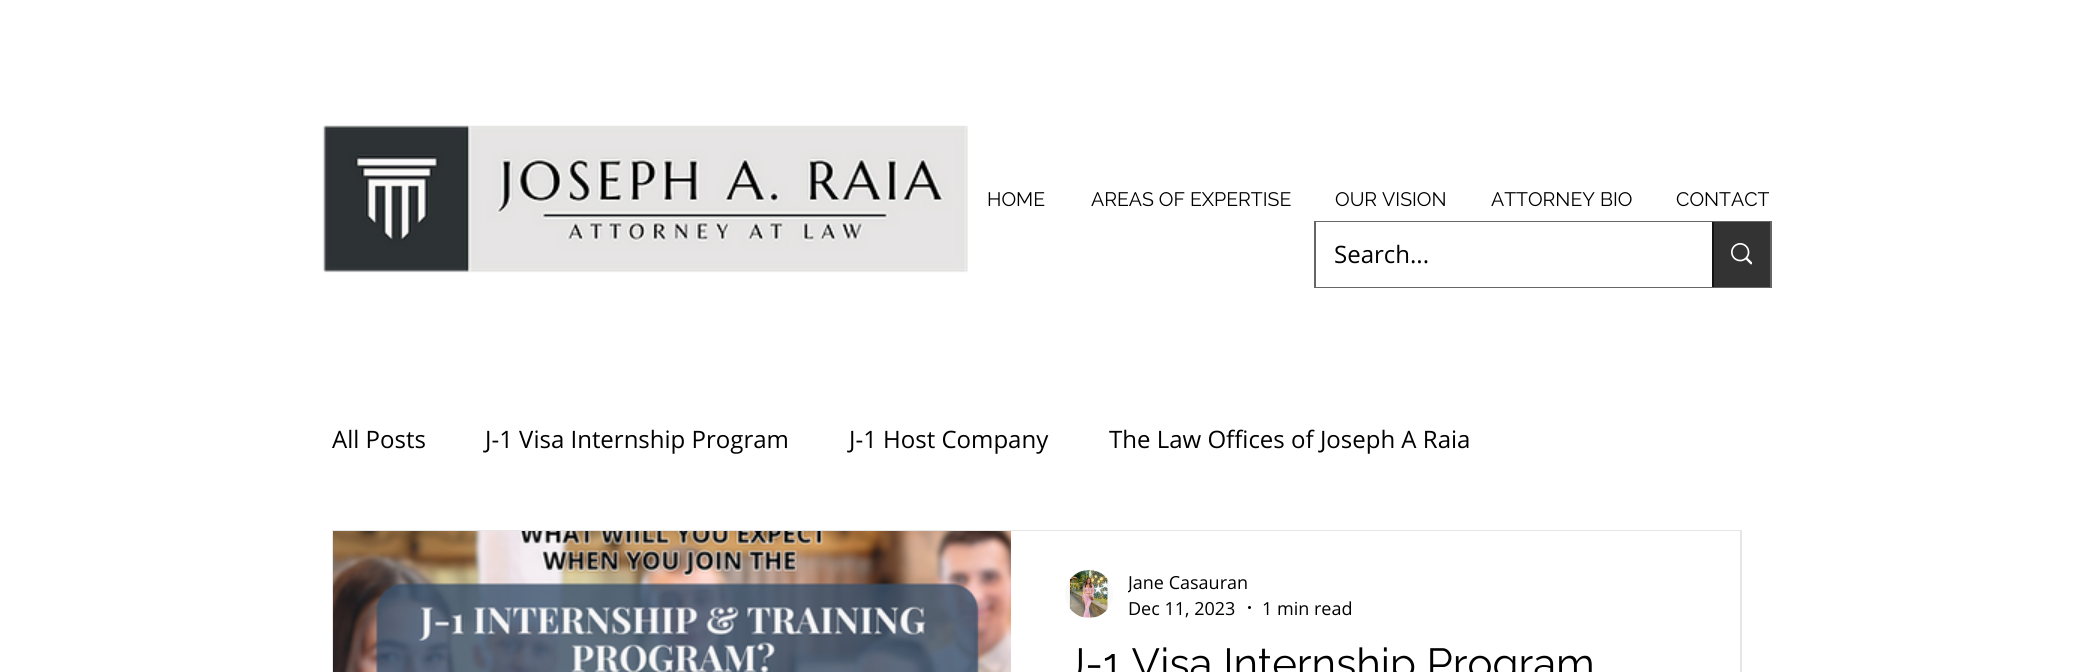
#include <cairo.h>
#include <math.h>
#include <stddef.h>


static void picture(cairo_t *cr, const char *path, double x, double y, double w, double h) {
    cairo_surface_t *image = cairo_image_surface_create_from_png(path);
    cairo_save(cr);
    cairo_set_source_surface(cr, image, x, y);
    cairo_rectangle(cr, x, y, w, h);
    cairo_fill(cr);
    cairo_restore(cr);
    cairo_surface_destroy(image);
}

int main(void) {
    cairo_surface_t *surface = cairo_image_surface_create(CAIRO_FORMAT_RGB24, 2076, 672);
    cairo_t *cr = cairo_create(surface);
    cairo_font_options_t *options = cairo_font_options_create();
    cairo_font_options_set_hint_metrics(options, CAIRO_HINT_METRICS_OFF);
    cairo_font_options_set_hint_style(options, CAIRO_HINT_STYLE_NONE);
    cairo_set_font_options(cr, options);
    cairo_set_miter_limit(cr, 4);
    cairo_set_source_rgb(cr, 1, 1, 1);
    cairo_paint(cr);
    picture(cr, "img1.png", 322, 125, 646, 148);
    cairo_select_font_face(cr, "Raleway", CAIRO_FONT_SLANT_NORMAL, CAIRO_FONT_WEIGHT_NORMAL);
    cairo_set_font_size(cr, 19.5);
    cairo_set_source_rgb(cr, 0, 0, 0);
    cairo_move_to(cr, 987, 206);
    cairo_show_text(cr, "HOME");
    cairo_move_to(cr, 1091, 206);
    cairo_show_text(cr, "AREAS OF EXPERTISE");
    cairo_move_to(cr, 1335, 206);
    cairo_show_text(cr, "OUR VISION");
    cairo_move_to(cr, 1491, 206);
    cairo_show_text(cr, "ATTORNEY BIO");
    cairo_move_to(cr, 1676, 206);
    cairo_show_text(cr, "CONTACT");
    cairo_rectangle(cr, 1315, 222, 456, 65);
    cairo_set_source_rgb(cr, 0.4, 0.4, 0.4);
    cairo_stroke(cr);
    cairo_set_source_rgb(cr, 1, 1, 1);
    cairo_rectangle(cr, 1316, 222, 396, 65);
    cairo_fill(cr);
    cairo_select_font_face(cr, "Open Sans", CAIRO_FONT_SLANT_NORMAL, CAIRO_FONT_WEIGHT_NORMAL);
    cairo_set_font_size(cr, 24);
    cairo_set_source_rgb(cr, 0, 0, 0);
    cairo_move_to(cr, 1334, 263);
    cairo_show_text(cr, "Search...");
    cairo_set_source_rgb(cr, 0.2, 0.2, 0.2);
    cairo_rectangle(cr, 1714, 222, 56, 65);
    cairo_fill(cr);
    cairo_set_source_rgb(cr, 0.078, 0.078, 0.078);
    cairo_rectangle(cr, 1712, 222, 2, 65);
    cairo_fill(cr);
    picture(cr, "img2.png", 1731, 243, 21, 22);
    cairo_set_source_rgb(cr, 0, 0, 0);
    cairo_move_to(cr, 332, 448);
    cairo_show_text(cr, "All Posts");
    cairo_move_to(cr, 485, 448);
    cairo_show_text(cr, "J-1 Visa Internship Program");
    cairo_move_to(cr, 849, 448);
    cairo_show_text(cr, "J-1 Host Company");
    cairo_move_to(cr, 1109, 448);
    cairo_show_text(cr, "The Law Offices of Joseph A Raia");
    cairo_rectangle(cr, 333, 531, 1408, 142);
    cairo_set_source_rgb(cr, 0.902, 0.902, 0.902);
    cairo_stroke(cr);
    picture(cr, "img3.png", 333, 531, 678, 141);
    cairo_set_source_rgb(cr, 1, 1, 1);
    cairo_rectangle(cr, 1011, 531, 729, 1);
    cairo_fill(cr);
    picture(cr, "img4.png", 1065, 570, 48, 48);
    cairo_save(cr);
    cairo_rectangle(cr, 1128, 570, 120, 24);
    cairo_clip(cr);
    cairo_set_font_size(cr, 18);
    cairo_set_source_rgb(cr, 0, 0, 0);
    cairo_move_to(cr, 1128, 589);
    cairo_show_text(cr, "Jane Casauran");
    cairo_restore(cr);
    cairo_set_font_size(cr, 18);
    cairo_set_source_rgb(cr, 0, 0, 0);
    cairo_move_to(cr, 1128, 615);
    cairo_show_text(cr, "Dec 11, 2023");
    cairo_new_path(cr);
    cairo_arc(cr, 1249.5, 607.5, 1.5, 0, 2 * M_PI);
    cairo_fill(cr);
    cairo_move_to(cr, 1262, 615);
    cairo_show_text(cr, "1 min read");
    cairo_select_font_face(cr, "Raleway", CAIRO_FONT_SLANT_NORMAL, CAIRO_FONT_WEIGHT_NORMAL);
    cairo_set_font_size(cr, 42);
    cairo_move_to(cr, 1065, 678);
    cairo_show_text(cr, "J-1 Visa Internship Program");
    cairo_surface_write_to_png(surface, "page.png");
    cairo_font_options_destroy(options);
    cairo_destroy(cr);
    cairo_surface_destroy(surface);
    return 0;
}
